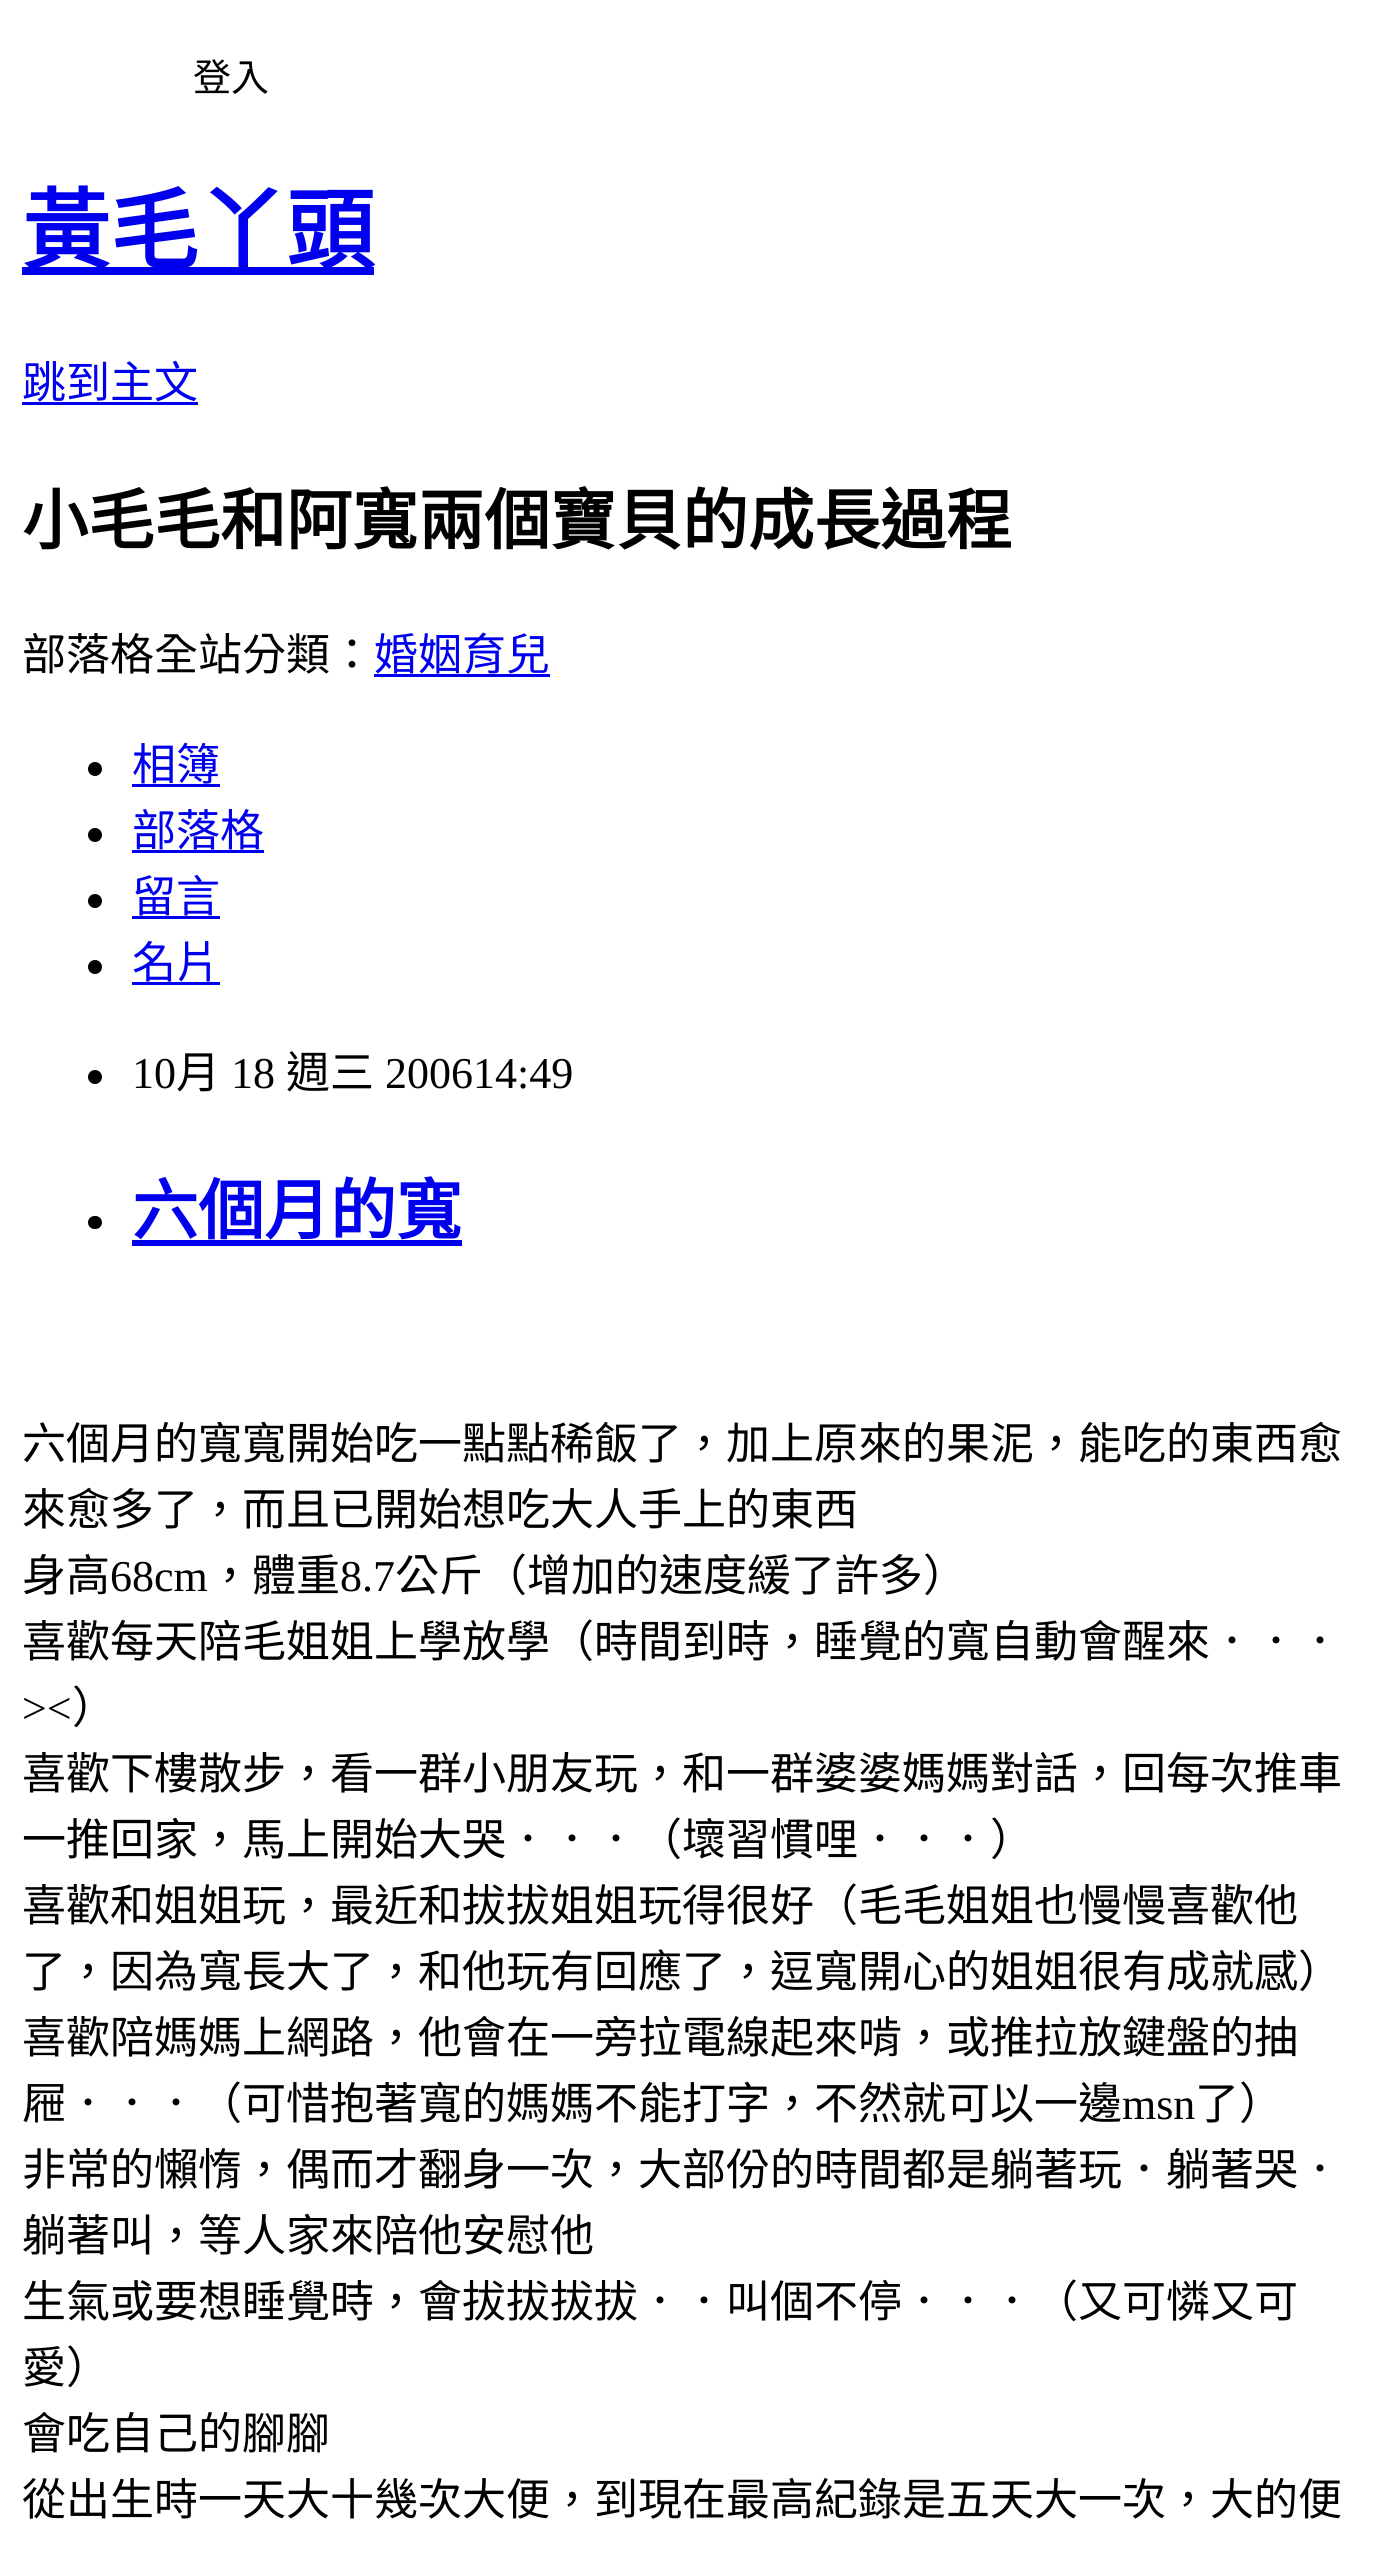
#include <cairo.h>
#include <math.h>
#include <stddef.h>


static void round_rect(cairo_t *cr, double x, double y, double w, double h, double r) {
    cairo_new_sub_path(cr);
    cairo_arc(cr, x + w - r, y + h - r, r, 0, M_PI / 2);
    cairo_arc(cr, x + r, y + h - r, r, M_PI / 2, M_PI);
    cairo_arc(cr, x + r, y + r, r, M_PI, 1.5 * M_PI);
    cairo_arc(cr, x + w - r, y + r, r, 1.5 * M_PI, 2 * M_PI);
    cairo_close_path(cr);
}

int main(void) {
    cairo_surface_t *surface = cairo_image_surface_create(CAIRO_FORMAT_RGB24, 1382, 2561);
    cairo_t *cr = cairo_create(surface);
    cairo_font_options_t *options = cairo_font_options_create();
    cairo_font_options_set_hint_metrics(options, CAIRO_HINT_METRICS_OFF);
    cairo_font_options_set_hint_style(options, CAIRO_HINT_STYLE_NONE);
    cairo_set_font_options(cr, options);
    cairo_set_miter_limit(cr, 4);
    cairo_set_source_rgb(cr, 1, 1, 1);
    cairo_paint(cr);
    cairo_select_font_face(cr, "Noto Sans CJK TC", CAIRO_FONT_SLANT_NORMAL, CAIRO_FONT_WEIGHT_NORMAL);
    cairo_set_font_size(cr, 38);
    cairo_set_source_rgb(cr, 0, 0, 0);
    cairo_move_to(cr, 193, 91);
    cairo_show_text(cr, "登入");
    cairo_set_source_rgb(cr, 0, 0, 0.933);
    cairo_rectangle(cr, 22, 267, 352, 8);
    cairo_fill(cr);
    cairo_select_font_face(cr, "Noto Sans CJK TC", CAIRO_FONT_SLANT_NORMAL, CAIRO_FONT_WEIGHT_BOLD);
    cairo_set_font_size(cr, 88);
    cairo_move_to(cr, 22, 262);
    cairo_show_text(cr, "黃毛丫頭");
    cairo_select_font_face(cr, "Noto Sans CJK TC", CAIRO_FONT_SLANT_NORMAL, CAIRO_FONT_WEIGHT_NORMAL);
    cairo_set_font_size(cr, 44);
    cairo_move_to(cr, 22, 398);
    cairo_show_text(cr, "跳到主文");
    cairo_rectangle(cr, 22, 402, 176, 3);
    cairo_fill(cr);
    cairo_select_font_face(cr, "Noto Sans CJK TC", CAIRO_FONT_SLANT_NORMAL, CAIRO_FONT_WEIGHT_BOLD);
    cairo_set_font_size(cr, 66);
    cairo_set_source_rgb(cr, 0, 0, 0);
    cairo_move_to(cr, 22, 544);
    cairo_show_text(cr, "小毛毛和阿寬兩個寶貝的成長過程");
    cairo_select_font_face(cr, "Noto Sans CJK TC", CAIRO_FONT_SLANT_NORMAL, CAIRO_FONT_WEIGHT_NORMAL);
    cairo_set_font_size(cr, 44);
    cairo_move_to(cr, 22, 670);
    cairo_show_text(cr, "部落格全站分類：");
    cairo_set_source_rgb(cr, 0, 0, 0.933);
    cairo_move_to(cr, 374, 670);
    cairo_show_text(cr, "婚姻育兒");
    cairo_rectangle(cr, 374, 674, 176, 3);
    cairo_fill(cr);
    cairo_set_source_rgb(cr, 0, 0, 0);
    cairo_arc(cr, 95, 769, 7, 0, 2 * M_PI);
    cairo_fill(cr);
    cairo_set_source_rgb(cr, 0, 0, 0.933);
    cairo_move_to(cr, 132, 780);
    cairo_show_text(cr, "相簿");
    cairo_rectangle(cr, 132, 784, 88, 3);
    cairo_fill(cr);
    cairo_set_source_rgb(cr, 0, 0, 0);
    cairo_arc(cr, 95, 835, 7, 0, 2 * M_PI);
    cairo_fill(cr);
    cairo_set_source_rgb(cr, 0, 0, 0.933);
    cairo_move_to(cr, 132, 846);
    cairo_show_text(cr, "部落格");
    cairo_rectangle(cr, 132, 850, 132, 3);
    cairo_fill(cr);
    cairo_set_source_rgb(cr, 0, 0, 0);
    cairo_arc(cr, 95, 901, 7, 0, 2 * M_PI);
    cairo_fill(cr);
    cairo_set_source_rgb(cr, 0, 0, 0.933);
    cairo_move_to(cr, 132, 912);
    cairo_show_text(cr, "留言");
    cairo_rectangle(cr, 132, 916, 88, 3);
    cairo_fill(cr);
    cairo_set_source_rgb(cr, 0, 0, 0);
    cairo_arc(cr, 95, 967, 7, 0, 2 * M_PI);
    cairo_fill(cr);
    cairo_set_source_rgb(cr, 0, 0, 0.933);
    cairo_move_to(cr, 132, 978);
    cairo_show_text(cr, "名片");
    cairo_rectangle(cr, 132, 982, 88, 3);
    cairo_fill(cr);
    cairo_set_source_rgb(cr, 0, 0, 0);
    cairo_arc(cr, 95, 1077, 7, 0, 2 * M_PI);
    cairo_fill(cr);
    cairo_select_font_face(cr, "Liberation Serif", CAIRO_FONT_SLANT_NORMAL, CAIRO_FONT_WEIGHT_NORMAL);
    cairo_move_to(cr, 132, 1088);
    cairo_show_text(cr, "10");
    cairo_select_font_face(cr, "Noto Sans CJK TC", CAIRO_FONT_SLANT_NORMAL, CAIRO_FONT_WEIGHT_NORMAL);
    cairo_move_to(cr, 176, 1088);
    cairo_show_text(cr, "月");
    cairo_select_font_face(cr, "Liberation Serif", CAIRO_FONT_SLANT_NORMAL, CAIRO_FONT_WEIGHT_NORMAL);
    cairo_move_to(cr, 231, 1088);
    cairo_show_text(cr, "18");
    cairo_select_font_face(cr, "Noto Sans CJK TC", CAIRO_FONT_SLANT_NORMAL, CAIRO_FONT_WEIGHT_NORMAL);
    cairo_move_to(cr, 286, 1088);
    cairo_show_text(cr, "週三");
    cairo_select_font_face(cr, "Liberation Serif", CAIRO_FONT_SLANT_NORMAL, CAIRO_FONT_WEIGHT_NORMAL);
    cairo_move_to(cr, 385, 1088);
    cairo_show_text(cr, "200614:49");
    round_rect(cr, 88, 1216, 14, 13, 6.5);
    cairo_fill(cr);
    cairo_select_font_face(cr, "Noto Sans CJK TC", CAIRO_FONT_SLANT_NORMAL, CAIRO_FONT_WEIGHT_BOLD);
    cairo_set_font_size(cr, 66);
    cairo_set_source_rgb(cr, 0, 0, 0.933);
    cairo_move_to(cr, 132, 1234);
    cairo_show_text(cr, "六個月的寬");
    cairo_rectangle(cr, 132, 1240, 330, 6);
    cairo_fill(cr);
    cairo_select_font_face(cr, "Noto Sans CJK TC", CAIRO_FONT_SLANT_NORMAL, CAIRO_FONT_WEIGHT_NORMAL);
    cairo_set_font_size(cr, 44);
    cairo_set_source_rgb(cr, 0, 0, 0);
    cairo_move_to(cr, 22, 1459);
    cairo_show_text(cr, "六個月的寬寬開始吃一點點稀飯了，加上原來的果泥，能吃的東西愈");
    cairo_move_to(cr, 22, 1525);
    cairo_show_text(cr, "來愈多了，而且已開始想吃大人手上的東西");
    cairo_move_to(cr, 22, 1591);
    cairo_show_text(cr, "身高");
    cairo_select_font_face(cr, "Liberation Serif", CAIRO_FONT_SLANT_NORMAL, CAIRO_FONT_WEIGHT_NORMAL);
    cairo_move_to(cr, 110, 1591);
    cairo_show_text(cr, "68cm");
    cairo_select_font_face(cr, "Noto Sans CJK TC", CAIRO_FONT_SLANT_NORMAL, CAIRO_FONT_WEIGHT_NORMAL);
    cairo_move_to(cr, 208, 1591);
    cairo_show_text(cr, "，體重");
    cairo_select_font_face(cr, "Liberation Serif", CAIRO_FONT_SLANT_NORMAL, CAIRO_FONT_WEIGHT_NORMAL);
    cairo_move_to(cr, 340, 1591);
    cairo_show_text(cr, "8.7");
    cairo_select_font_face(cr, "Noto Sans CJK TC", CAIRO_FONT_SLANT_NORMAL, CAIRO_FONT_WEIGHT_NORMAL);
    cairo_move_to(cr, 395, 1591);
    cairo_show_text(cr, "公斤（增加的速度緩了許多）");
    cairo_move_to(cr, 22, 1657);
    cairo_show_text(cr, "喜歡每天陪毛姐姐上學放學（時間到時，睡覺的寬自動會醒來．．．");
    cairo_select_font_face(cr, "Liberation Serif", CAIRO_FONT_SLANT_NORMAL, CAIRO_FONT_WEIGHT_NORMAL);
    cairo_move_to(cr, 22, 1723);
    cairo_show_text(cr, "><");
    cairo_select_font_face(cr, "Noto Sans CJK TC", CAIRO_FONT_SLANT_NORMAL, CAIRO_FONT_WEIGHT_NORMAL);
    cairo_move_to(cr, 72, 1723);
    cairo_show_text(cr, "）");
    cairo_move_to(cr, 22, 1789);
    cairo_show_text(cr, "喜歡下樓散步，看一群小朋友玩，和一群婆婆媽媽對話，回每次推車");
    cairo_move_to(cr, 22, 1855);
    cairo_show_text(cr, "一推回家，馬上開始大哭．．．（壞習慣哩．．．）");
    cairo_move_to(cr, 22, 1921);
    cairo_show_text(cr, "喜歡和姐姐玩，最近和拔拔姐姐玩得很好（毛毛姐姐也慢慢喜歡他");
    cairo_move_to(cr, 22, 1987);
    cairo_show_text(cr, "了，因為寬長大了，和他玩有回應了，逗寬開心的姐姐很有成就感）");
    cairo_move_to(cr, 22, 2053);
    cairo_show_text(cr, "喜歡陪媽媽上網路，他會在一旁拉電線起來啃，或推拉放鍵盤的抽");
    cairo_move_to(cr, 22, 2119);
    cairo_show_text(cr, "屜．．．（可惜抱著寬的媽媽不能打字，不然就可以一邊");
    cairo_select_font_face(cr, "Liberation Serif", CAIRO_FONT_SLANT_NORMAL, CAIRO_FONT_WEIGHT_NORMAL);
    cairo_move_to(cr, 1122, 2119);
    cairo_show_text(cr, "msn");
    cairo_select_font_face(cr, "Noto Sans CJK TC", CAIRO_FONT_SLANT_NORMAL, CAIRO_FONT_WEIGHT_NORMAL);
    cairo_move_to(cr, 1195, 2119);
    cairo_show_text(cr, "了）");
    cairo_move_to(cr, 22, 2185);
    cairo_show_text(cr, "非常的懶惰，偶而才翻身一次，大部份的時間都是躺著玩．躺著哭．");
    cairo_move_to(cr, 22, 2251);
    cairo_show_text(cr, "躺著叫，等人家來陪他安慰他");
    cairo_move_to(cr, 22, 2317);
    cairo_show_text(cr, "生氣或要想睡覺時，會拔拔拔拔．．叫個不停．．．（又可憐又可");
    cairo_move_to(cr, 22, 2383);
    cairo_show_text(cr, "愛）");
    cairo_move_to(cr, 22, 2449);
    cairo_show_text(cr, "會吃自己的腳腳");
    cairo_move_to(cr, 22, 2515);
    cairo_show_text(cr, "從出生時一天大十幾次大便，到現在最高紀錄是五天大一次，大的便");
    cairo_surface_write_to_png(surface, "page.png");
    cairo_font_options_destroy(options);
    cairo_destroy(cr);
    cairo_surface_destroy(surface);
    return 0;
}
